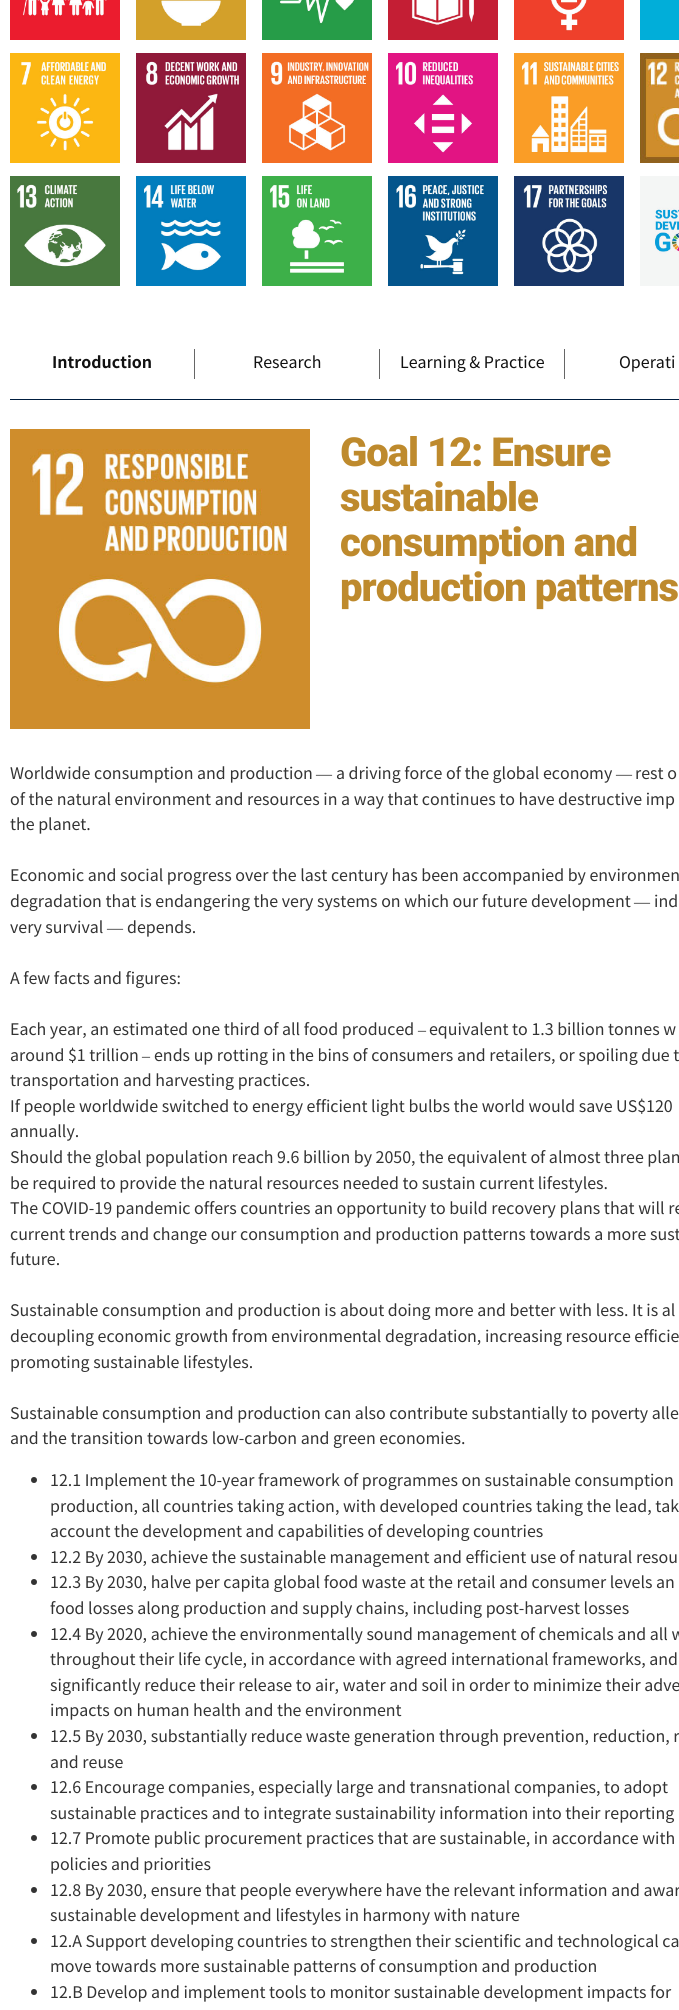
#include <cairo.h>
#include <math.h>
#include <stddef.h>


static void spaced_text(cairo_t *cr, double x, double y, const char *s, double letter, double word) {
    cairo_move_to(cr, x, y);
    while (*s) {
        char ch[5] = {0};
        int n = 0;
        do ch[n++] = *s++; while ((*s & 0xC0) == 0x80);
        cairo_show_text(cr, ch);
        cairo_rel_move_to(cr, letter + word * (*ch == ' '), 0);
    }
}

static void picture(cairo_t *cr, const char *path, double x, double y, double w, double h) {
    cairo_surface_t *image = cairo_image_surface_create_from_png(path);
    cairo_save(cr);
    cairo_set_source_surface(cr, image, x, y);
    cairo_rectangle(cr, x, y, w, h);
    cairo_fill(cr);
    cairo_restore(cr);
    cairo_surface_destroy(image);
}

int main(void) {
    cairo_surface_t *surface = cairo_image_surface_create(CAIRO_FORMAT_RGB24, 679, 2010);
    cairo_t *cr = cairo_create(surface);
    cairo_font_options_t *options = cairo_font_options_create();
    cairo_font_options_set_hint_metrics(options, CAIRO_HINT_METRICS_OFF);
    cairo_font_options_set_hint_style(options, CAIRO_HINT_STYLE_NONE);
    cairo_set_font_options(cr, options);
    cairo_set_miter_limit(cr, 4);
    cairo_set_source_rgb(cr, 1, 1, 1);
    cairo_paint(cr);
    picture(cr, "img1.png", 10, 0, 110, 40);
    picture(cr, "img2.png", 136, 0, 110, 40);
    picture(cr, "img3.png", 262, 0, 110, 40);
    picture(cr, "img4.png", 388, 0, 110, 40);
    picture(cr, "img5.png", 514, 0, 110, 40);
    cairo_set_source_rgb(cr, 0.004, 0.682, 0.851);
    cairo_rectangle(cr, 640, 0, 39, 40);
    cairo_fill(cr);
    picture(cr, "img6.png", 10, 53, 110, 110);
    picture(cr, "img7.png", 136, 53, 110, 110);
    picture(cr, "img8.png", 262, 53, 110, 110);
    picture(cr, "img9.png", 388, 53, 110, 110);
    picture(cr, "img10.png", 514, 53, 110, 110);
    picture(cr, "img11.png", 640, 53, 39, 110);
    picture(cr, "img12.png", 10, 176, 110, 110);
    picture(cr, "img13.png", 136, 176, 110, 110);
    picture(cr, "img14.png", 262, 176, 110, 110);
    picture(cr, "img15.png", 388, 176, 110, 110);
    picture(cr, "img16.png", 514, 176, 110, 110);
    picture(cr, "img17.png", 640, 176, 39, 110);
    cairo_set_source_rgb(cr, 0, 0.118, 0.251);
    cairo_rectangle(cr, 10, 399, 669, 1);
    cairo_fill(cr);
    cairo_set_source_rgb(cr, 0.4, 0.4, 0.4);
    cairo_rectangle(cr, 194, 349, 1, 30);
    cairo_fill(cr);
    cairo_select_font_face(cr, "Noto Sans KR", CAIRO_FONT_SLANT_NORMAL, CAIRO_FONT_WEIGHT_BOLD);
    cairo_set_font_size(cr, 16);
    cairo_set_source_rgb(cr, 0.067, 0.067, 0.067);
    cairo_move_to(cr, 52, 368);
    cairo_show_text(cr, "Introduction");
    cairo_set_source_rgb(cr, 0.4, 0.4, 0.4);
    cairo_rectangle(cr, 379, 349, 1, 30);
    cairo_fill(cr);
    cairo_select_font_face(cr, "Noto Sans KR", CAIRO_FONT_SLANT_NORMAL, CAIRO_FONT_WEIGHT_NORMAL);
    cairo_set_source_rgb(cr, 0.067, 0.067, 0.067);
    cairo_move_to(cr, 253, 368);
    cairo_show_text(cr, "Research");
    cairo_set_source_rgb(cr, 0.4, 0.4, 0.4);
    cairo_rectangle(cr, 564, 349, 1, 30);
    cairo_fill(cr);
    cairo_set_source_rgb(cr, 0.067, 0.067, 0.067);
    cairo_move_to(cr, 400, 368);
    cairo_show_text(cr, "Learning & Practice");
    cairo_move_to(cr, 619, 368);
    cairo_show_text(cr, "Operati");
    cairo_select_font_face(cr, "Roboto Black", CAIRO_FONT_SLANT_NORMAL, CAIRO_FONT_WEIGHT_NORMAL);
    cairo_set_font_size(cr, 40);
    cairo_set_source_rgb(cr, 0.745, 0.541, 0.176);
    spaced_text(cr, 340, 466, "Goal 12: Ensure", -1, 0);
    spaced_text(cr, 340, 511, "sustainable", -1, 0);
    spaced_text(cr, 340, 556, "consumption and", -1, 0);
    spaced_text(cr, 340, 601, "production patterns", -1, 0);
    cairo_select_font_face(cr, "Noto Sans KR", CAIRO_FONT_SLANT_NORMAL, CAIRO_FONT_WEIGHT_NORMAL);
    cairo_set_font_size(cr, 16);
    cairo_set_source_rgb(cr, 0.2, 0.2, 0.2);
    cairo_move_to(cr, 10, 779);
    cairo_show_text(cr, "Worldwide consumption and production");
    cairo_select_font_face(cr, "Liberation Serif", CAIRO_FONT_SLANT_NORMAL, CAIRO_FONT_WEIGHT_NORMAL);
    cairo_move_to(cr, 316, 779);
    cairo_show_text(cr, "—");
    cairo_select_font_face(cr, "Noto Sans KR", CAIRO_FONT_SLANT_NORMAL, CAIRO_FONT_WEIGHT_NORMAL);
    cairo_move_to(cr, 336, 779);
    cairo_show_text(cr, "a driving force of the global economy");
    cairo_select_font_face(cr, "Liberation Serif", CAIRO_FONT_SLANT_NORMAL, CAIRO_FONT_WEIGHT_NORMAL);
    cairo_move_to(cr, 616, 779);
    cairo_show_text(cr, "—");
    cairo_select_font_face(cr, "Noto Sans KR", CAIRO_FONT_SLANT_NORMAL, CAIRO_FONT_WEIGHT_NORMAL);
    cairo_move_to(cr, 635, 779);
    cairo_show_text(cr, "rest o");
    cairo_move_to(cr, 10, 805);
    cairo_show_text(cr, "of the natural environment and resources in a way that continues to have destructive imp");
    cairo_move_to(cr, 10, 830);
    cairo_show_text(cr, "the planet.");
    cairo_move_to(cr, 10, 881);
    cairo_show_text(cr, "Economic and social progress over the last century has been accompanied by environmen");
    cairo_move_to(cr, 10, 907);
    cairo_show_text(cr, "degradation that is endangering the very systems on which our future development");
    cairo_select_font_face(cr, "Liberation Serif", CAIRO_FONT_SLANT_NORMAL, CAIRO_FONT_WEIGHT_NORMAL);
    cairo_move_to(cr, 634, 907);
    cairo_show_text(cr, "—");
    cairo_select_font_face(cr, "Noto Sans KR", CAIRO_FONT_SLANT_NORMAL, CAIRO_FONT_WEIGHT_NORMAL);
    cairo_move_to(cr, 654, 907);
    cairo_show_text(cr, "ind");
    cairo_move_to(cr, 10, 933);
    cairo_show_text(cr, "very survival");
    cairo_select_font_face(cr, "Liberation Serif", CAIRO_FONT_SLANT_NORMAL, CAIRO_FONT_WEIGHT_NORMAL);
    cairo_move_to(cr, 107, 933);
    cairo_show_text(cr, "—");
    cairo_select_font_face(cr, "Noto Sans KR", CAIRO_FONT_SLANT_NORMAL, CAIRO_FONT_WEIGHT_NORMAL);
    cairo_move_to(cr, 127, 933);
    cairo_show_text(cr, "depends.");
    cairo_move_to(cr, 10, 984);
    cairo_show_text(cr, "A few facts and figures:");
    cairo_move_to(cr, 10, 1035);
    cairo_show_text(cr, "Each year, an estimated one third of all food produced");
    cairo_select_font_face(cr, "Liberation Serif", CAIRO_FONT_SLANT_NORMAL, CAIRO_FONT_WEIGHT_NORMAL);
    cairo_move_to(cr, 418, 1035);
    cairo_show_text(cr, "–");
    cairo_select_font_face(cr, "Noto Sans KR", CAIRO_FONT_SLANT_NORMAL, CAIRO_FONT_WEIGHT_NORMAL);
    cairo_move_to(cr, 429, 1035);
    cairo_show_text(cr, "equivalent to 1.3 billion tonnes w");
    cairo_move_to(cr, 10, 1061);
    cairo_show_text(cr, "around $1 trillion");
    cairo_select_font_face(cr, "Liberation Serif", CAIRO_FONT_SLANT_NORMAL, CAIRO_FONT_WEIGHT_NORMAL);
    cairo_move_to(cr, 142, 1061);
    cairo_show_text(cr, "–");
    cairo_select_font_face(cr, "Noto Sans KR", CAIRO_FONT_SLANT_NORMAL, CAIRO_FONT_WEIGHT_NORMAL);
    cairo_move_to(cr, 154, 1061);
    cairo_show_text(cr, "ends up rotting in the bins of consumers and retailers, or spoiling due t");
    cairo_move_to(cr, 10, 1086);
    cairo_show_text(cr, "transportation and harvesting practices.");
    cairo_move_to(cr, 10, 1112);
    cairo_show_text(cr, "If people worldwide switched to energy efficient light bulbs the world would save US$120");
    cairo_move_to(cr, 10, 1137);
    cairo_show_text(cr, "annually.");
    cairo_move_to(cr, 10, 1163);
    cairo_show_text(cr, "Should the global population reach 9.6 billion by 2050, the equivalent of almost three plan");
    cairo_move_to(cr, 10, 1189);
    cairo_show_text(cr, "be required to provide the natural resources needed to sustain current lifestyles.");
    cairo_move_to(cr, 10, 1214);
    cairo_show_text(cr, "The COVID-19 pandemic offers countries an opportunity to build recovery plans that will re");
    cairo_move_to(cr, 10, 1240);
    cairo_show_text(cr, "current trends and change our consumption and production patterns towards a more sust");
    cairo_move_to(cr, 10, 1265);
    cairo_show_text(cr, "future.");
    cairo_move_to(cr, 10, 1316);
    cairo_show_text(cr, "Sustainable consumption and production is about doing more and better with less. It is al");
    cairo_move_to(cr, 10, 1342);
    cairo_show_text(cr, "decoupling economic growth from environmental degradation, increasing resource efficie");
    cairo_move_to(cr, 10, 1368);
    cairo_show_text(cr, "promoting sustainable lifestyles.");
    cairo_move_to(cr, 10, 1419);
    cairo_show_text(cr, "Sustainable consumption and production can also contribute substantially to poverty alle");
    cairo_move_to(cr, 10, 1444);
    cairo_show_text(cr, "and the transition towards low-carbon and green economies.");
    cairo_new_path(cr);
    cairo_arc(cr, 34, 1480, 3, 0, 2 * M_PI);
    cairo_fill(cr);
    cairo_move_to(cr, 50, 1486);
    cairo_show_text(cr, "12.1 Implement the 10-year framework of programmes on sustainable consumption");
    cairo_move_to(cr, 50, 1512);
    cairo_show_text(cr, "production, all countries taking action, with developed countries taking the lead, tak");
    cairo_move_to(cr, 50, 1537);
    cairo_show_text(cr, "account the development and capabilities of developing countries");
    cairo_new_path(cr);
    cairo_arc(cr, 34, 1557, 3, 0, 2 * M_PI);
    cairo_fill(cr);
    cairo_move_to(cr, 50, 1563);
    cairo_show_text(cr, "12.2 By 2030, achieve the sustainable management and efficient use of natural resou");
    cairo_new_path(cr);
    cairo_arc(cr, 34, 1582, 3, 0, 2 * M_PI);
    cairo_fill(cr);
    cairo_move_to(cr, 50, 1588);
    cairo_show_text(cr, "12.3 By 2030, halve per capita global food waste at the retail and consumer levels an");
    cairo_move_to(cr, 50, 1614);
    cairo_show_text(cr, "food losses along production and supply chains, including post-harvest losses");
    cairo_new_path(cr);
    cairo_arc(cr, 34, 1634, 3, 0, 2 * M_PI);
    cairo_fill(cr);
    cairo_move_to(cr, 50, 1640);
    cairo_show_text(cr, "12.4 By 2020, achieve the environmentally sound management of chemicals and all w");
    cairo_move_to(cr, 50, 1665);
    cairo_show_text(cr, "throughout their life cycle, in accordance with agreed international frameworks, and");
    cairo_move_to(cr, 50, 1691);
    cairo_show_text(cr, "significantly reduce their release to air, water and soil in order to minimize their adve");
    cairo_move_to(cr, 50, 1716);
    cairo_show_text(cr, "impacts on human health and the environment");
    cairo_new_path(cr);
    cairo_arc(cr, 34, 1736, 3, 0, 2 * M_PI);
    cairo_fill(cr);
    cairo_move_to(cr, 50, 1742);
    cairo_show_text(cr, "12.5 By 2030, substantially reduce waste generation through prevention, reduction, r");
    cairo_move_to(cr, 50, 1768);
    cairo_show_text(cr, "and reuse");
    cairo_new_path(cr);
    cairo_arc(cr, 34, 1787, 3, 0, 2 * M_PI);
    cairo_fill(cr);
    cairo_move_to(cr, 50, 1793);
    cairo_show_text(cr, "12.6 Encourage companies, especially large and transnational companies, to adopt");
    cairo_move_to(cr, 50, 1819);
    cairo_show_text(cr, "sustainable practices and to integrate sustainability information into their reporting");
    cairo_new_path(cr);
    cairo_arc(cr, 34, 1838, 3, 0, 2 * M_PI);
    cairo_fill(cr);
    cairo_move_to(cr, 50, 1844);
    cairo_show_text(cr, "12.7 Promote public procurement practices that are sustainable, in accordance with");
    cairo_move_to(cr, 50, 1870);
    cairo_show_text(cr, "policies and priorities");
    cairo_new_path(cr);
    cairo_arc(cr, 34, 1890, 3, 0, 2 * M_PI);
    cairo_fill(cr);
    cairo_move_to(cr, 50, 1896);
    cairo_show_text(cr, "12.8 By 2030, ensure that people everywhere have the relevant information and awar");
    cairo_move_to(cr, 50, 1921);
    cairo_show_text(cr, "sustainable development and lifestyles in harmony with nature");
    cairo_new_path(cr);
    cairo_arc(cr, 34, 1941, 3, 0, 2 * M_PI);
    cairo_fill(cr);
    cairo_move_to(cr, 50, 1947);
    cairo_show_text(cr, "12.A Support developing countries to strengthen their scientific and technological ca");
    cairo_move_to(cr, 50, 1972);
    cairo_show_text(cr, "move towards more sustainable patterns of consumption and production");
    cairo_new_path(cr);
    cairo_arc(cr, 34, 1992, 3, 0, 2 * M_PI);
    cairo_fill(cr);
    cairo_move_to(cr, 50, 1998);
    cairo_show_text(cr, "12.B Develop and implement tools to monitor sustainable development impacts for");
    picture(cr, "img18.png", 10, 429, 300, 300);
    cairo_surface_write_to_png(surface, "page.png");
    cairo_font_options_destroy(options);
    cairo_destroy(cr);
    cairo_surface_destroy(surface);
    return 0;
}
